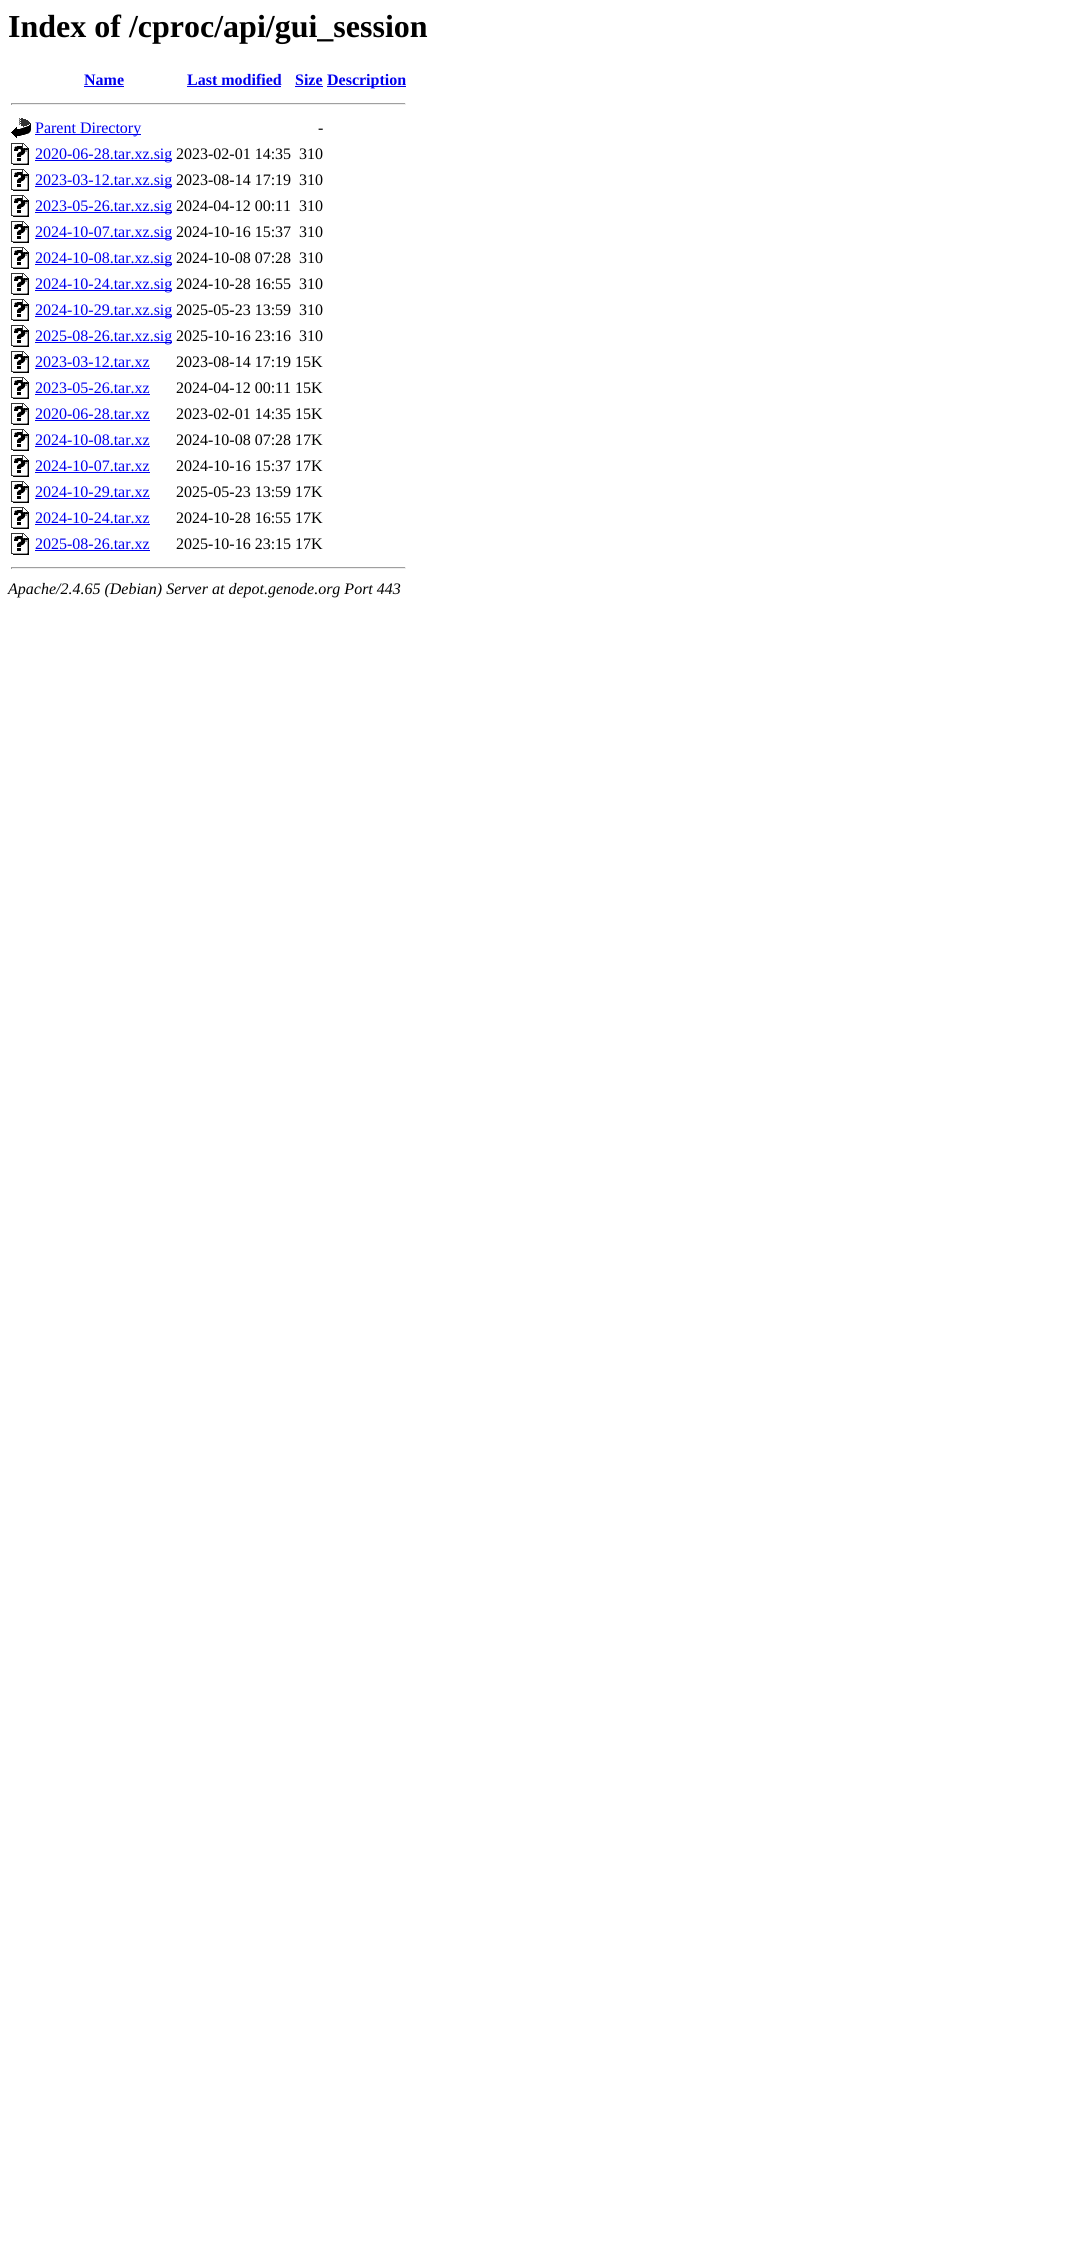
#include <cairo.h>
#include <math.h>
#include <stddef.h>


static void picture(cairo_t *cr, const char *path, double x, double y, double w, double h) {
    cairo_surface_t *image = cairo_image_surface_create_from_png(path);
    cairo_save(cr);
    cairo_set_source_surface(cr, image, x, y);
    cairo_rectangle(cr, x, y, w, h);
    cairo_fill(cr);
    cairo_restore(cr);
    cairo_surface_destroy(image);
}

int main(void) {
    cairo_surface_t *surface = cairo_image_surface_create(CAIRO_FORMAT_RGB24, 1068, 2263);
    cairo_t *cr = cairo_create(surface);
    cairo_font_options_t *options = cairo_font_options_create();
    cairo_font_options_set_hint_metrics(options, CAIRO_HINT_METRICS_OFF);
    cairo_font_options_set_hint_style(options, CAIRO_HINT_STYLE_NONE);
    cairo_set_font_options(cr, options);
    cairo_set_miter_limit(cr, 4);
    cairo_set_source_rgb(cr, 1, 1, 1);
    cairo_paint(cr);
    cairo_select_font_face(cr, "Liberation Serif", CAIRO_FONT_SLANT_NORMAL, CAIRO_FONT_WEIGHT_BOLD);
    cairo_set_font_size(cr, 32);
    cairo_set_source_rgb(cr, 0, 0, 0);
    cairo_move_to(cr, 8, 37);
    cairo_show_text(cr, "Index of /cproc/api/gui_session");
    cairo_set_font_size(cr, 16);
    cairo_set_source_rgb(cr, 0, 0, 0.933);
    cairo_move_to(cr, 84, 85);
    cairo_show_text(cr, "Name");
    cairo_rectangle(cr, 84, 86, 40, 1);
    cairo_fill(cr);
    cairo_move_to(cr, 187, 85);
    cairo_show_text(cr, "Last modified");
    cairo_rectangle(cr, 187, 86, 94, 1);
    cairo_fill(cr);
    cairo_move_to(cr, 295, 85);
    cairo_show_text(cr, "Size");
    cairo_rectangle(cr, 295, 86, 28, 1);
    cairo_fill(cr);
    cairo_rectangle(cr, 327, 86, 79, 1);
    cairo_fill(cr);
    cairo_move_to(cr, 327, 85);
    cairo_show_text(cr, "Description");
    cairo_set_source_rgb(cr, 0.624, 0.624, 0.624);
    cairo_rectangle(cr, 11, 103, 395, 1);
    cairo_fill(cr);
    cairo_set_source_rgb(cr, 0.933, 0.933, 0.933);
    cairo_rectangle(cr, 405, 103, 1, 2);
    cairo_fill(cr);
    cairo_rectangle(cr, 11, 104, 395, 1);
    cairo_fill(cr);
    cairo_set_source_rgb(cr, 0.624, 0.624, 0.624);
    cairo_rectangle(cr, 11, 103, 1, 2);
    cairo_fill(cr);
    picture(cr, "img1.png", 11, 118, 20, 20);
    cairo_set_source_rgb(cr, 0, 0, 0.933);
    cairo_rectangle(cr, 35, 134, 106, 1);
    cairo_fill(cr);
    cairo_select_font_face(cr, "Liberation Serif", CAIRO_FONT_SLANT_NORMAL, CAIRO_FONT_WEIGHT_NORMAL);
    cairo_move_to(cr, 35, 133);
    cairo_show_text(cr, "Parent Directory");
    cairo_set_source_rgb(cr, 0, 0, 0);
    cairo_move_to(cr, 318, 133);
    cairo_show_text(cr, "-");
    picture(cr, "img2.png", 11, 143, 18, 22);
    cairo_set_source_rgb(cr, 0, 0, 0.933);
    cairo_rectangle(cr, 35, 160, 137, 1);
    cairo_fill(cr);
    cairo_move_to(cr, 35, 159);
    cairo_show_text(cr, "2020-06-28.tar.xz.sig");
    cairo_set_source_rgb(cr, 0, 0, 0);
    cairo_move_to(cr, 176, 159);
    cairo_show_text(cr, "2023-02-01 14:35");
    cairo_move_to(cr, 299, 159);
    cairo_show_text(cr, "310");
    picture(cr, "img2.png", 11, 169, 18, 22);
    cairo_set_source_rgb(cr, 0, 0, 0.933);
    cairo_rectangle(cr, 35, 186, 137, 1);
    cairo_fill(cr);
    cairo_move_to(cr, 35, 185);
    cairo_show_text(cr, "2023-03-12.tar.xz.sig");
    cairo_set_source_rgb(cr, 0, 0, 0);
    cairo_move_to(cr, 176, 185);
    cairo_show_text(cr, "2023-08-14 17:19");
    cairo_move_to(cr, 299, 185);
    cairo_show_text(cr, "310");
    picture(cr, "img2.png", 11, 195, 18, 22);
    cairo_set_source_rgb(cr, 0, 0, 0.933);
    cairo_rectangle(cr, 35, 212, 137, 1);
    cairo_fill(cr);
    cairo_move_to(cr, 35, 211);
    cairo_show_text(cr, "2023-05-26.tar.xz.sig");
    cairo_set_source_rgb(cr, 0, 0, 0);
    cairo_move_to(cr, 176, 211);
    cairo_show_text(cr, "2024-04-12 00:11");
    cairo_move_to(cr, 299, 211);
    cairo_show_text(cr, "310");
    picture(cr, "img2.png", 11, 221, 18, 22);
    cairo_set_source_rgb(cr, 0, 0, 0.933);
    cairo_rectangle(cr, 35, 238, 137, 1);
    cairo_fill(cr);
    cairo_move_to(cr, 35, 237);
    cairo_show_text(cr, "2024-10-07.tar.xz.sig");
    cairo_set_source_rgb(cr, 0, 0, 0);
    cairo_move_to(cr, 176, 237);
    cairo_show_text(cr, "2024-10-16 15:37");
    cairo_move_to(cr, 299, 237);
    cairo_show_text(cr, "310");
    picture(cr, "img2.png", 11, 247, 18, 22);
    cairo_set_source_rgb(cr, 0, 0, 0.933);
    cairo_rectangle(cr, 35, 264, 137, 1);
    cairo_fill(cr);
    cairo_move_to(cr, 35, 263);
    cairo_show_text(cr, "2024-10-08.tar.xz.sig");
    cairo_set_source_rgb(cr, 0, 0, 0);
    cairo_move_to(cr, 176, 263);
    cairo_show_text(cr, "2024-10-08 07:28");
    cairo_move_to(cr, 299, 263);
    cairo_show_text(cr, "310");
    picture(cr, "img2.png", 11, 273, 18, 22);
    cairo_set_source_rgb(cr, 0, 0, 0.933);
    cairo_rectangle(cr, 35, 290, 137, 1);
    cairo_fill(cr);
    cairo_move_to(cr, 35, 289);
    cairo_show_text(cr, "2024-10-24.tar.xz.sig");
    cairo_set_source_rgb(cr, 0, 0, 0);
    cairo_move_to(cr, 176, 289);
    cairo_show_text(cr, "2024-10-28 16:55");
    cairo_move_to(cr, 299, 289);
    cairo_show_text(cr, "310");
    picture(cr, "img2.png", 11, 299, 18, 22);
    cairo_set_source_rgb(cr, 0, 0, 0.933);
    cairo_rectangle(cr, 35, 316, 137, 1);
    cairo_fill(cr);
    cairo_move_to(cr, 35, 315);
    cairo_show_text(cr, "2024-10-29.tar.xz.sig");
    cairo_set_source_rgb(cr, 0, 0, 0);
    cairo_move_to(cr, 176, 315);
    cairo_show_text(cr, "2025-05-23 13:59");
    cairo_move_to(cr, 299, 315);
    cairo_show_text(cr, "310");
    picture(cr, "img2.png", 11, 325, 18, 22);
    cairo_set_source_rgb(cr, 0, 0, 0.933);
    cairo_rectangle(cr, 35, 342, 137, 1);
    cairo_fill(cr);
    cairo_move_to(cr, 35, 341);
    cairo_show_text(cr, "2025-08-26.tar.xz.sig");
    cairo_set_source_rgb(cr, 0, 0, 0);
    cairo_move_to(cr, 176, 341);
    cairo_show_text(cr, "2025-10-16 23:16");
    cairo_move_to(cr, 299, 341);
    cairo_show_text(cr, "310");
    picture(cr, "img2.png", 11, 351, 18, 22);
    cairo_set_source_rgb(cr, 0, 0, 0.933);
    cairo_move_to(cr, 35, 367);
    cairo_show_text(cr, "2023-03-12.tar.xz");
    cairo_rectangle(cr, 35, 368, 115, 1);
    cairo_fill(cr);
    cairo_set_source_rgb(cr, 0, 0, 0);
    cairo_move_to(cr, 176, 367);
    cairo_show_text(cr, "2023-08-14 17:19 15K");
    picture(cr, "img2.png", 11, 377, 18, 22);
    cairo_set_source_rgb(cr, 0, 0, 0.933);
    cairo_move_to(cr, 35, 393);
    cairo_show_text(cr, "2023-05-26.tar.xz");
    cairo_rectangle(cr, 35, 394, 115, 1);
    cairo_fill(cr);
    cairo_set_source_rgb(cr, 0, 0, 0);
    cairo_move_to(cr, 176, 393);
    cairo_show_text(cr, "2024-04-12 00:11 15K");
    picture(cr, "img2.png", 11, 403, 18, 22);
    cairo_set_source_rgb(cr, 0, 0, 0.933);
    cairo_move_to(cr, 35, 419);
    cairo_show_text(cr, "2020-06-28.tar.xz");
    cairo_rectangle(cr, 35, 420, 115, 1);
    cairo_fill(cr);
    cairo_set_source_rgb(cr, 0, 0, 0);
    cairo_move_to(cr, 176, 419);
    cairo_show_text(cr, "2023-02-01 14:35 15K");
    picture(cr, "img2.png", 11, 429, 18, 22);
    cairo_set_source_rgb(cr, 0, 0, 0.933);
    cairo_move_to(cr, 35, 445);
    cairo_show_text(cr, "2024-10-08.tar.xz");
    cairo_rectangle(cr, 35, 446, 115, 1);
    cairo_fill(cr);
    cairo_set_source_rgb(cr, 0, 0, 0);
    cairo_move_to(cr, 176, 445);
    cairo_show_text(cr, "2024-10-08 07:28 17K");
    picture(cr, "img2.png", 11, 455, 18, 22);
    cairo_set_source_rgb(cr, 0, 0, 0.933);
    cairo_move_to(cr, 35, 471);
    cairo_show_text(cr, "2024-10-07.tar.xz");
    cairo_rectangle(cr, 35, 472, 115, 1);
    cairo_fill(cr);
    cairo_set_source_rgb(cr, 0, 0, 0);
    cairo_move_to(cr, 176, 471);
    cairo_show_text(cr, "2024-10-16 15:37 17K");
    picture(cr, "img2.png", 11, 481, 18, 22);
    cairo_set_source_rgb(cr, 0, 0, 0.933);
    cairo_move_to(cr, 35, 497);
    cairo_show_text(cr, "2024-10-29.tar.xz");
    cairo_rectangle(cr, 35, 498, 115, 1);
    cairo_fill(cr);
    cairo_set_source_rgb(cr, 0, 0, 0);
    cairo_move_to(cr, 176, 497);
    cairo_show_text(cr, "2025-05-23 13:59 17K");
    picture(cr, "img2.png", 11, 507, 18, 22);
    cairo_set_source_rgb(cr, 0, 0, 0.933);
    cairo_move_to(cr, 35, 523);
    cairo_show_text(cr, "2024-10-24.tar.xz");
    cairo_rectangle(cr, 35, 524, 115, 1);
    cairo_fill(cr);
    cairo_set_source_rgb(cr, 0, 0, 0);
    cairo_move_to(cr, 176, 523);
    cairo_show_text(cr, "2024-10-28 16:55 17K");
    picture(cr, "img2.png", 11, 533, 18, 22);
    cairo_set_source_rgb(cr, 0, 0, 0.933);
    cairo_move_to(cr, 35, 549);
    cairo_show_text(cr, "2025-08-26.tar.xz");
    cairo_rectangle(cr, 35, 550, 115, 1);
    cairo_fill(cr);
    cairo_set_source_rgb(cr, 0, 0, 0);
    cairo_move_to(cr, 176, 549);
    cairo_show_text(cr, "2025-10-16 23:15 17K");
    cairo_set_source_rgb(cr, 0.624, 0.624, 0.624);
    cairo_rectangle(cr, 11, 567, 395, 1);
    cairo_fill(cr);
    cairo_set_source_rgb(cr, 0.933, 0.933, 0.933);
    cairo_rectangle(cr, 405, 567, 1, 2);
    cairo_fill(cr);
    cairo_rectangle(cr, 11, 568, 395, 1);
    cairo_fill(cr);
    cairo_set_source_rgb(cr, 0.624, 0.624, 0.624);
    cairo_rectangle(cr, 11, 567, 1, 2);
    cairo_fill(cr);
    cairo_select_font_face(cr, "Liberation Serif", CAIRO_FONT_SLANT_ITALIC, CAIRO_FONT_WEIGHT_NORMAL);
    cairo_set_source_rgb(cr, 0, 0, 0);
    cairo_move_to(cr, 8, 594);
    cairo_show_text(cr, "Apache/2.4.65 (Debian) Server at depot.genode.org Port 443");
    cairo_surface_write_to_png(surface, "page.png");
    cairo_font_options_destroy(options);
    cairo_destroy(cr);
    cairo_surface_destroy(surface);
    return 0;
}
